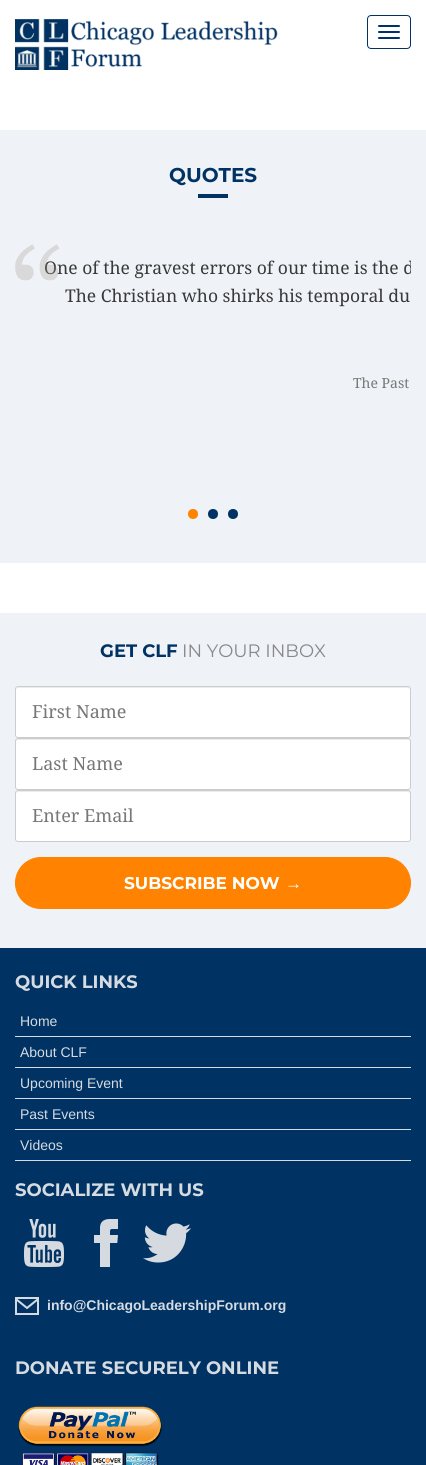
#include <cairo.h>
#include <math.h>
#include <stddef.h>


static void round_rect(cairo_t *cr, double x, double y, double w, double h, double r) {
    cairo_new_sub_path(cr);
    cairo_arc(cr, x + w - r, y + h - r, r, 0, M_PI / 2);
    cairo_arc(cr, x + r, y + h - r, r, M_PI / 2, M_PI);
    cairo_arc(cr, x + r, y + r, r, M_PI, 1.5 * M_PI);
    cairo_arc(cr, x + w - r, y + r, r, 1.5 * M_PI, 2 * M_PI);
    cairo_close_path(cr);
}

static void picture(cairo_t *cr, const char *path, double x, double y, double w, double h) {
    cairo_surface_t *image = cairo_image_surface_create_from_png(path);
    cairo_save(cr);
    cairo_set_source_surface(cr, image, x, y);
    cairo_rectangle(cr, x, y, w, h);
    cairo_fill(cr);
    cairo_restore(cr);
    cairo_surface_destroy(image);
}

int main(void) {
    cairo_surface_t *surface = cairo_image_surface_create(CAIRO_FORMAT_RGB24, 426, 1465);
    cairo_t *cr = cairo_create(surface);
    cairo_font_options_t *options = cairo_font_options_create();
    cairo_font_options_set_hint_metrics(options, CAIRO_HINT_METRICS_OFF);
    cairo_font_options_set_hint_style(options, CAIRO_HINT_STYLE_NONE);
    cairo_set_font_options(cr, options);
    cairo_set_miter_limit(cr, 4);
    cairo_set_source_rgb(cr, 1, 1, 1);
    cairo_paint(cr);
    picture(cr, "img1.png", 15, 19, 263, 51);
    round_rect(cr, 367.5, 15.5, 43, 33, 3.5);
    cairo_set_source_rgb(cr, 0, 0.196, 0.392);
    cairo_set_line_width(cr, 1);
    cairo_stroke(cr);
    round_rect(cr, 378, 25, 22, 2, 1);
    cairo_fill(cr);
    round_rect(cr, 378, 31, 22, 2, 1);
    cairo_fill(cr);
    round_rect(cr, 378, 37, 22, 2, 1);
    cairo_fill(cr);
    cairo_set_source_rgb(cr, 0.937, 0.949, 0.961);
    cairo_rectangle(cr, 0, 130, 426, 433);
    cairo_fill(cr);
    cairo_select_font_face(cr, "Montserrat", CAIRO_FONT_SLANT_NORMAL, CAIRO_FONT_WEIGHT_BOLD);
    cairo_set_font_size(cr, 20);
    cairo_set_source_rgb(cr, 0, 0.196, 0.392);
    cairo_move_to(cr, 169, 182);
    cairo_show_text(cr, "QUOTES");
    cairo_rectangle(cr, 198, 194, 30, 4);
    cairo_fill(cr);
    cairo_save(cr);
    cairo_rectangle(cr, 15, 244, 396, 250);
    cairo_clip(cr);
    cairo_select_font_face(cr, "Droid Serif", CAIRO_FONT_SLANT_NORMAL, CAIRO_FONT_WEIGHT_NORMAL);
    cairo_set_font_size(cr, 17.5);
    cairo_set_source_rgb(cr, 0.224, 0.224, 0.224);
    cairo_move_to(cr, 44, 274);
    cairo_show_text(cr, "One of the gravest errors of our time is the d");
    cairo_restore(cr);
    picture(cr, "img2.png", 15, 244, 45, 37);
    cairo_select_font_face(cr, "Droid Serif", CAIRO_FONT_SLANT_NORMAL, CAIRO_FONT_WEIGHT_NORMAL);
    cairo_set_font_size(cr, 17.5);
    cairo_set_source_rgb(cr, 0.224, 0.224, 0.224);
    cairo_move_to(cr, 65, 302);
    cairo_show_text(cr, "The Christian who shirks his temporal du");
    cairo_set_font_size(cr, 14);
    cairo_set_source_rgb(cr, 0.467, 0.467, 0.467);
    cairo_move_to(cr, 353, 388);
    cairo_show_text(cr, "The Past");
    cairo_set_source_rgb(cr, 1, 0.514, 0);
    cairo_new_path(cr);
    cairo_arc(cr, 193, 514, 5, 0, 2 * M_PI);
    cairo_fill(cr);
    cairo_set_source_rgb(cr, 0, 0.196, 0.392);
    cairo_arc(cr, 213, 514, 5, 0, 2 * M_PI);
    cairo_fill(cr);
    cairo_arc(cr, 233, 514, 5, 0, 2 * M_PI);
    cairo_fill(cr);
    cairo_set_source_rgb(cr, 0.937, 0.949, 0.961);
    cairo_rectangle(cr, 0, 613, 426, 335);
    cairo_fill(cr);
    cairo_select_font_face(cr, "Montserrat", CAIRO_FONT_SLANT_NORMAL, CAIRO_FONT_WEIGHT_BOLD);
    cairo_set_font_size(cr, 18);
    cairo_set_source_rgb(cr, 0, 0.196, 0.392);
    cairo_move_to(cr, 100, 657);
    cairo_show_text(cr, "GET CLF");
    cairo_select_font_face(cr, "Montserrat", CAIRO_FONT_SLANT_NORMAL, CAIRO_FONT_WEIGHT_NORMAL);
    cairo_set_source_rgb(cr, 0.533, 0.533, 0.533);
    cairo_move_to(cr, 182, 657);
    cairo_show_text(cr, "IN YOUR INBOX");
    cairo_set_source_rgb(cr, 1, 1, 1);
    round_rect(cr, 15, 686, 396, 52, 3);
    cairo_fill(cr);
    cairo_set_source_rgb(cr, 0.925, 0.925, 0.925);
    cairo_new_path(cr);
    cairo_move_to(cr, 18, 688);
    cairo_line_to(cr, 408, 688);
    cairo_curve_to(cr, 409, 688, 410, 689, 410, 690);
    cairo_curve_to(cr, 410, 689, 410, 688, 409, 687);
    cairo_line_to(cr, 18, 687);
    cairo_line_to(cr, 16, 688);
    cairo_line_to(cr, 16, 690);
    cairo_curve_to(cr, 16, 689, 17, 688, 18, 688);
    cairo_close_path(cr);
    cairo_fill(cr);
    round_rect(cr, 15.5, 686.5, 395, 51, 2.5);
    cairo_set_source_rgb(cr, 0.8, 0.8, 0.8);
    cairo_stroke(cr);
    cairo_select_font_face(cr, "Droid Serif", CAIRO_FONT_SLANT_NORMAL, CAIRO_FONT_WEIGHT_NORMAL);
    cairo_set_source_rgb(cr, 0.467, 0.467, 0.467);
    cairo_move_to(cr, 32, 718);
    cairo_show_text(cr, "First Name");
    cairo_set_source_rgb(cr, 1, 1, 1);
    round_rect(cr, 15, 738, 396, 52, 3);
    cairo_fill(cr);
    cairo_set_source_rgb(cr, 0.925, 0.925, 0.925);
    cairo_new_path(cr);
    cairo_move_to(cr, 18, 740);
    cairo_line_to(cr, 408, 740);
    cairo_curve_to(cr, 409, 740, 410, 741, 410, 742);
    cairo_curve_to(cr, 410, 741, 410, 740, 409, 739);
    cairo_line_to(cr, 18, 739);
    cairo_line_to(cr, 16, 740);
    cairo_line_to(cr, 16, 742);
    cairo_curve_to(cr, 16, 741, 17, 740, 18, 740);
    cairo_close_path(cr);
    cairo_fill(cr);
    round_rect(cr, 15.5, 738.5, 395, 51, 2.5);
    cairo_set_source_rgb(cr, 0.8, 0.8, 0.8);
    cairo_stroke(cr);
    cairo_set_source_rgb(cr, 0.467, 0.467, 0.467);
    cairo_move_to(cr, 32, 770);
    cairo_show_text(cr, "Last Name");
    cairo_set_source_rgb(cr, 1, 1, 1);
    round_rect(cr, 15, 790, 396, 52, 3);
    cairo_fill(cr);
    cairo_set_source_rgb(cr, 0.925, 0.925, 0.925);
    cairo_new_path(cr);
    cairo_move_to(cr, 18, 792);
    cairo_line_to(cr, 408, 792);
    cairo_curve_to(cr, 409, 792, 410, 793, 410, 794);
    cairo_curve_to(cr, 410, 793, 410, 792, 409, 791);
    cairo_line_to(cr, 18, 791);
    cairo_line_to(cr, 16, 792);
    cairo_line_to(cr, 16, 794);
    cairo_curve_to(cr, 16, 793, 17, 792, 18, 792);
    cairo_close_path(cr);
    cairo_fill(cr);
    round_rect(cr, 15.5, 790.5, 395, 51, 2.5);
    cairo_set_source_rgb(cr, 0.8, 0.8, 0.8);
    cairo_stroke(cr);
    cairo_set_source_rgb(cr, 0.467, 0.467, 0.467);
    cairo_move_to(cr, 32, 822);
    cairo_show_text(cr, "Enter Email");
    cairo_set_source_rgb(cr, 1, 0.514, 0);
    round_rect(cr, 15.5, 857.5, 395, 51, 25.5);
    cairo_fill_preserve(cr);
    cairo_stroke(cr);
    cairo_select_font_face(cr, "Montserrat", CAIRO_FONT_SLANT_NORMAL, CAIRO_FONT_WEIGHT_BOLD);
    cairo_set_font_size(cr, 17);
    cairo_set_source_rgb(cr, 1, 1, 1);
    cairo_move_to(cr, 124, 889);
    cairo_show_text(cr, "SUBSCRIBE NOW");
    cairo_select_font_face(cr, "Liberation Sans", CAIRO_FONT_SLANT_NORMAL, CAIRO_FONT_WEIGHT_BOLD);
    cairo_move_to(cr, 285, 889);
    cairo_show_text(cr, "→");
    cairo_set_source_rgb(cr, 0, 0.196, 0.392);
    cairo_rectangle(cr, 0, 948, 426, 517);
    cairo_fill(cr);
    cairo_select_font_face(cr, "Montserrat", CAIRO_FONT_SLANT_NORMAL, CAIRO_FONT_WEIGHT_BOLD);
    cairo_set_font_size(cr, 18);
    cairo_set_source_rgb(cr, 0.835, 0.859, 0.878);
    cairo_move_to(cr, 15, 988);
    cairo_show_text(cr, "QUICK LINKS");
    cairo_rectangle(cr, 15, 1036, 396, 1);
    cairo_fill(cr);
    cairo_select_font_face(cr, "Liberation Sans", CAIRO_FONT_SLANT_NORMAL, CAIRO_FONT_WEIGHT_NORMAL);
    cairo_set_font_size(cr, 14);
    cairo_move_to(cr, 20, 1026);
    cairo_show_text(cr, "Home");
    cairo_rectangle(cr, 15, 1067, 396, 1);
    cairo_fill(cr);
    cairo_move_to(cr, 20, 1057);
    cairo_show_text(cr, "About CLF");
    cairo_rectangle(cr, 15, 1098, 396, 1);
    cairo_fill(cr);
    cairo_move_to(cr, 20, 1088);
    cairo_show_text(cr, "Upcoming Event");
    cairo_rectangle(cr, 15, 1129, 396, 1);
    cairo_fill(cr);
    cairo_move_to(cr, 20, 1119);
    cairo_show_text(cr, "Past Events");
    cairo_rectangle(cr, 15, 1160, 396, 1);
    cairo_fill(cr);
    cairo_move_to(cr, 20, 1150);
    cairo_show_text(cr, "Videos");
    cairo_select_font_face(cr, "Montserrat", CAIRO_FONT_SLANT_NORMAL, CAIRO_FONT_WEIGHT_BOLD);
    cairo_set_font_size(cr, 18);
    cairo_move_to(cr, 15, 1196);
    cairo_show_text(cr, "SOCIALIZE WITH US");
    picture(cr, "img3.png", 24, 1219, 40, 48);
    picture(cr, "img4.png", 94, 1219, 24, 48);
    picture(cr, "img5.png", 143, 1223, 48, 40);
    picture(cr, "img6.png", 15, 1297, 24, 18);
    cairo_select_font_face(cr, "Liberation Sans", CAIRO_FONT_SLANT_NORMAL, CAIRO_FONT_WEIGHT_BOLD);
    cairo_set_font_size(cr, 14);
    cairo_move_to(cr, 47, 1310);
    cairo_show_text(cr, "info@ChicagoLeadershipForum.org");
    cairo_select_font_face(cr, "Montserrat", CAIRO_FONT_SLANT_NORMAL, CAIRO_FONT_WEIGHT_BOLD);
    cairo_set_font_size(cr, 18);
    cairo_move_to(cr, 15, 1374);
    cairo_show_text(cr, "DONATE SECURELY ONLINE");
    picture(cr, "img7.png", 18, 1406, 144, 59);
    cairo_surface_write_to_png(surface, "page.png");
    cairo_font_options_destroy(options);
    cairo_destroy(cr);
    cairo_surface_destroy(surface);
    return 0;
}
